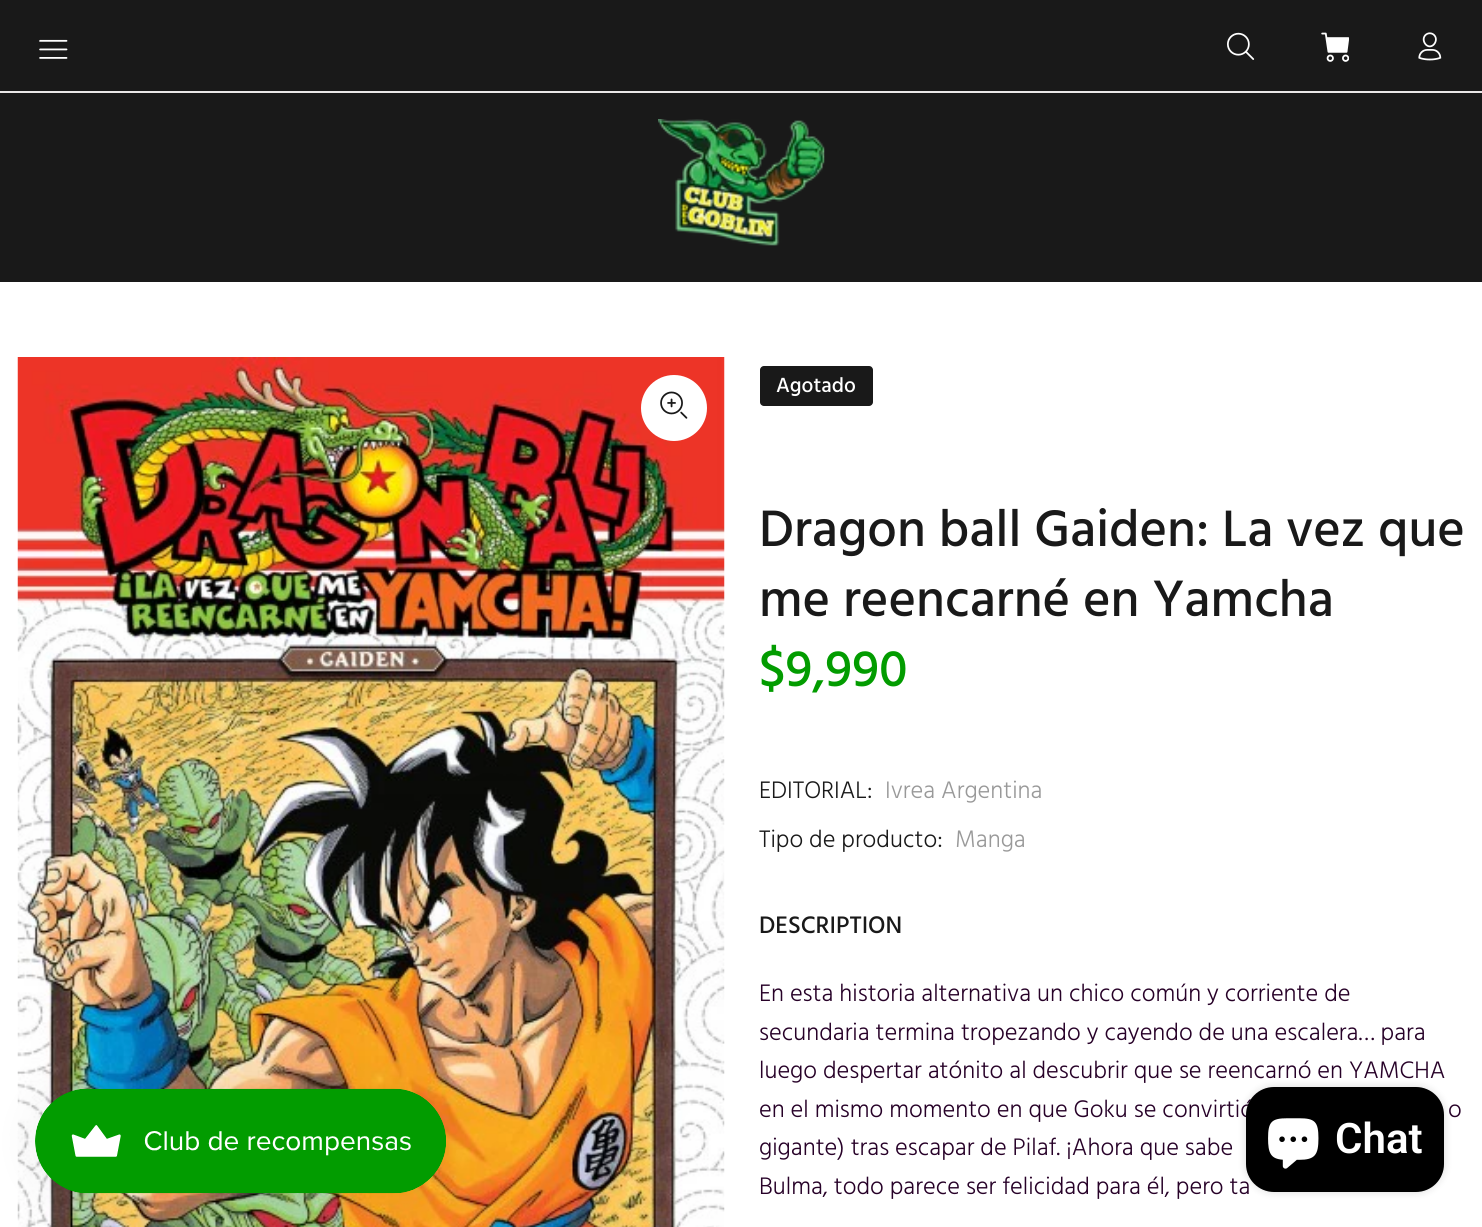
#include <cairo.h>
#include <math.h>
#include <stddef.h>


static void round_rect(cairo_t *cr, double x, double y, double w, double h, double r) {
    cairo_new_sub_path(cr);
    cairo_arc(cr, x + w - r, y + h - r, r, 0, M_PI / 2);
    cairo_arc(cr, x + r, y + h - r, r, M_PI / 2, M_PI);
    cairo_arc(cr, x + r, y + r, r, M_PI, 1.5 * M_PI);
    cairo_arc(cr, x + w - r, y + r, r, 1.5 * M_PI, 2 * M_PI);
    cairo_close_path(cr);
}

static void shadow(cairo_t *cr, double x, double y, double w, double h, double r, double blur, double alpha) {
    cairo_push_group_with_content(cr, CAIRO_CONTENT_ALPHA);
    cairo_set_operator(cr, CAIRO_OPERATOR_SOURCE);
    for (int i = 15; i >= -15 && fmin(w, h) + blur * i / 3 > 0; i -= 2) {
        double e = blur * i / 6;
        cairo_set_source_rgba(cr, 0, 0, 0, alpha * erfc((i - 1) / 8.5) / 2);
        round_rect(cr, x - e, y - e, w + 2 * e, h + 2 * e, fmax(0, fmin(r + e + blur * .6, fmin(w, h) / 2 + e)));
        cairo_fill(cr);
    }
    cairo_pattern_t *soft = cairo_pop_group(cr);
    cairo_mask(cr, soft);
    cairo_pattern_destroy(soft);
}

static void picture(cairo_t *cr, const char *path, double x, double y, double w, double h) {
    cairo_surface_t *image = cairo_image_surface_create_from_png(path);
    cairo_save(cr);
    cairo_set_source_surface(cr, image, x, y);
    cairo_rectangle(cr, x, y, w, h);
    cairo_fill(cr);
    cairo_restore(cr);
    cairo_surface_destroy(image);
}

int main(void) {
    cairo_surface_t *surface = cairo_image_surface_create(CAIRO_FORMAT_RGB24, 1482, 1227);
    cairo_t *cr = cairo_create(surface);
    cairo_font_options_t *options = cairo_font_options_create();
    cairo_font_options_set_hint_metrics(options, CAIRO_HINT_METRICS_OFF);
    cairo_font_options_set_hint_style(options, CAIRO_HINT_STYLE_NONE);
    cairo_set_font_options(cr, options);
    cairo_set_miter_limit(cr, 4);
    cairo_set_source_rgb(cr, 1, 1, 1);
    cairo_paint(cr);
    cairo_set_source_rgb(cr, 0.098, 0.098, 0.098);
    cairo_rectangle(cr, 0, 0, 1482, 282);
    cairo_fill(cr);
    picture(cr, "img1.png", 39, 39, 29, 20);
    picture(cr, "img2.png", 1227, 32, 28, 28);
    picture(cr, "img3.png", 1321, 32, 28, 30);
    picture(cr, "img4.png", 1418, 32, 24, 29);
    cairo_set_source_rgb(cr, 0.914, 0.906, 0.906);
    cairo_rectangle(cr, 0, 91, 1482, 2);
    cairo_fill(cr);
    picture(cr, "img5.png", 658, 119, 167, 127);
    picture(cr, "img7.png", 17, 357, 708, 870);
    cairo_set_source_rgb(cr, 0, 0, 0);
    shadow(cr, 35, 1089, 411, 105, 52.5, 22, 0.05);
    picture(cr, "img6.png", 35, 1088, 411, 106);
    cairo_set_source_rgb(cr, 1, 1, 1);
    cairo_arc(cr, 674, 408, 33, 0, 2 * M_PI);
    cairo_fill(cr);
    picture(cr, "img8.png", 660, 391, 28, 28);
    cairo_set_source_rgb(cr, 0.098, 0.098, 0.098);
    round_rect(cr, 760, 366, 113, 40, 4);
    cairo_fill(cr);
    cairo_select_font_face(cr, "Hind Medium", CAIRO_FONT_SLANT_NORMAL, CAIRO_FONT_WEIGHT_NORMAL);
    cairo_set_font_size(cr, 21);
    cairo_set_source_rgb(cr, 1, 1, 1);
    cairo_move_to(cr, 776, 392);
    cairo_show_text(cr, "Agotado");
    cairo_set_font_size(cr, 52.5);
    cairo_set_source_rgb(cr, 0.098, 0.098, 0.098);
    cairo_move_to(cr, 759, 546);
    cairo_show_text(cr, "Dragon ball Gaiden: La vez que");
    cairo_move_to(cr, 759, 616);
    cairo_show_text(cr, "me reencarné en Yamcha");
    cairo_set_source_rgb(cr, 0.008, 0.612, 0);
    cairo_move_to(cr, 759, 686);
    cairo_show_text(cr, "$9,990");
    cairo_select_font_face(cr, "Hind Light", CAIRO_FONT_SLANT_NORMAL, CAIRO_FONT_WEIGHT_NORMAL);
    cairo_set_font_size(cr, 24.5);
    cairo_set_source_rgb(cr, 0.098, 0.098, 0.098);
    cairo_move_to(cr, 759, 798);
    cairo_show_text(cr, "EDITORIAL:");
    cairo_set_source_rgb(cr, 0.6, 0.6, 0.6);
    cairo_move_to(cr, 885, 798);
    cairo_show_text(cr, "Ivrea Argentina");
    cairo_set_source_rgb(cr, 0.098, 0.098, 0.098);
    cairo_move_to(cr, 759, 847);
    cairo_show_text(cr, "Tipo de producto:");
    cairo_set_source_rgb(cr, 0.6, 0.6, 0.6);
    cairo_move_to(cr, 955, 847);
    cairo_show_text(cr, "Manga");
    cairo_select_font_face(cr, "Hind Medium", CAIRO_FONT_SLANT_NORMAL, CAIRO_FONT_WEIGHT_NORMAL);
    cairo_set_source_rgb(cr, 0.098, 0.098, 0.098);
    cairo_move_to(cr, 759, 933);
    cairo_show_text(cr, "DESCRIPTION");
    cairo_select_font_face(cr, "Hind Light", CAIRO_FONT_SLANT_NORMAL, CAIRO_FONT_WEIGHT_NORMAL);
    cairo_set_source_rgb(cr, 0.153, 0.004, 0.157);
    cairo_move_to(cr, 759, 1001);
    cairo_show_text(cr, "En esta historia alternativa un chico común y corriente de");
    cairo_move_to(cr, 759, 1040);
    cairo_show_text(cr, "secundaria termina tropezando y cayendo de una escalera… para");
    cairo_move_to(cr, 759, 1078);
    cairo_show_text(cr, "luego despertar atónito al descubrir que se reencarnó en YAMCHA");
    cairo_move_to(cr, 759, 1117);
    cairo_show_text(cr, "en el mismo momento en que Goku se convirtió");
    cairo_move_to(cr, 1448, 1117);
    cairo_show_text(cr, "o");
    cairo_move_to(cr, 759, 1155);
    cairo_show_text(cr, "gigante) tras escapar de Pilaf. ¡Ahora que sabe");
    cairo_move_to(cr, 759, 1194);
    cairo_show_text(cr, "Bulma, todo parece ser felicidad para él, pero ta");
    cairo_set_source_rgb(cr, 0, 0, 0);
    shadow(cr, 1246, 1087, 198, 105, 28, 4.5, 0.15);
    cairo_set_source_rgb(cr, 0, 0, 0);
    round_rect(cr, 1246, 1087, 198, 105, 28);
    cairo_fill(cr);
    picture(cr, "img9.png", 1268, 1118, 51, 51);
    cairo_select_font_face(cr, "Roboto SemiBold", CAIRO_FONT_SLANT_NORMAL, CAIRO_FONT_WEIGHT_NORMAL);
    cairo_set_font_size(cr, 42);
    cairo_set_source_rgb(cr, 1, 1, 1);
    cairo_move_to(cr, 1335, 1153);
    cairo_show_text(cr, "Chat");
    cairo_surface_write_to_png(surface, "page.png");
    cairo_font_options_destroy(options);
    cairo_destroy(cr);
    cairo_surface_destroy(surface);
    return 0;
}
